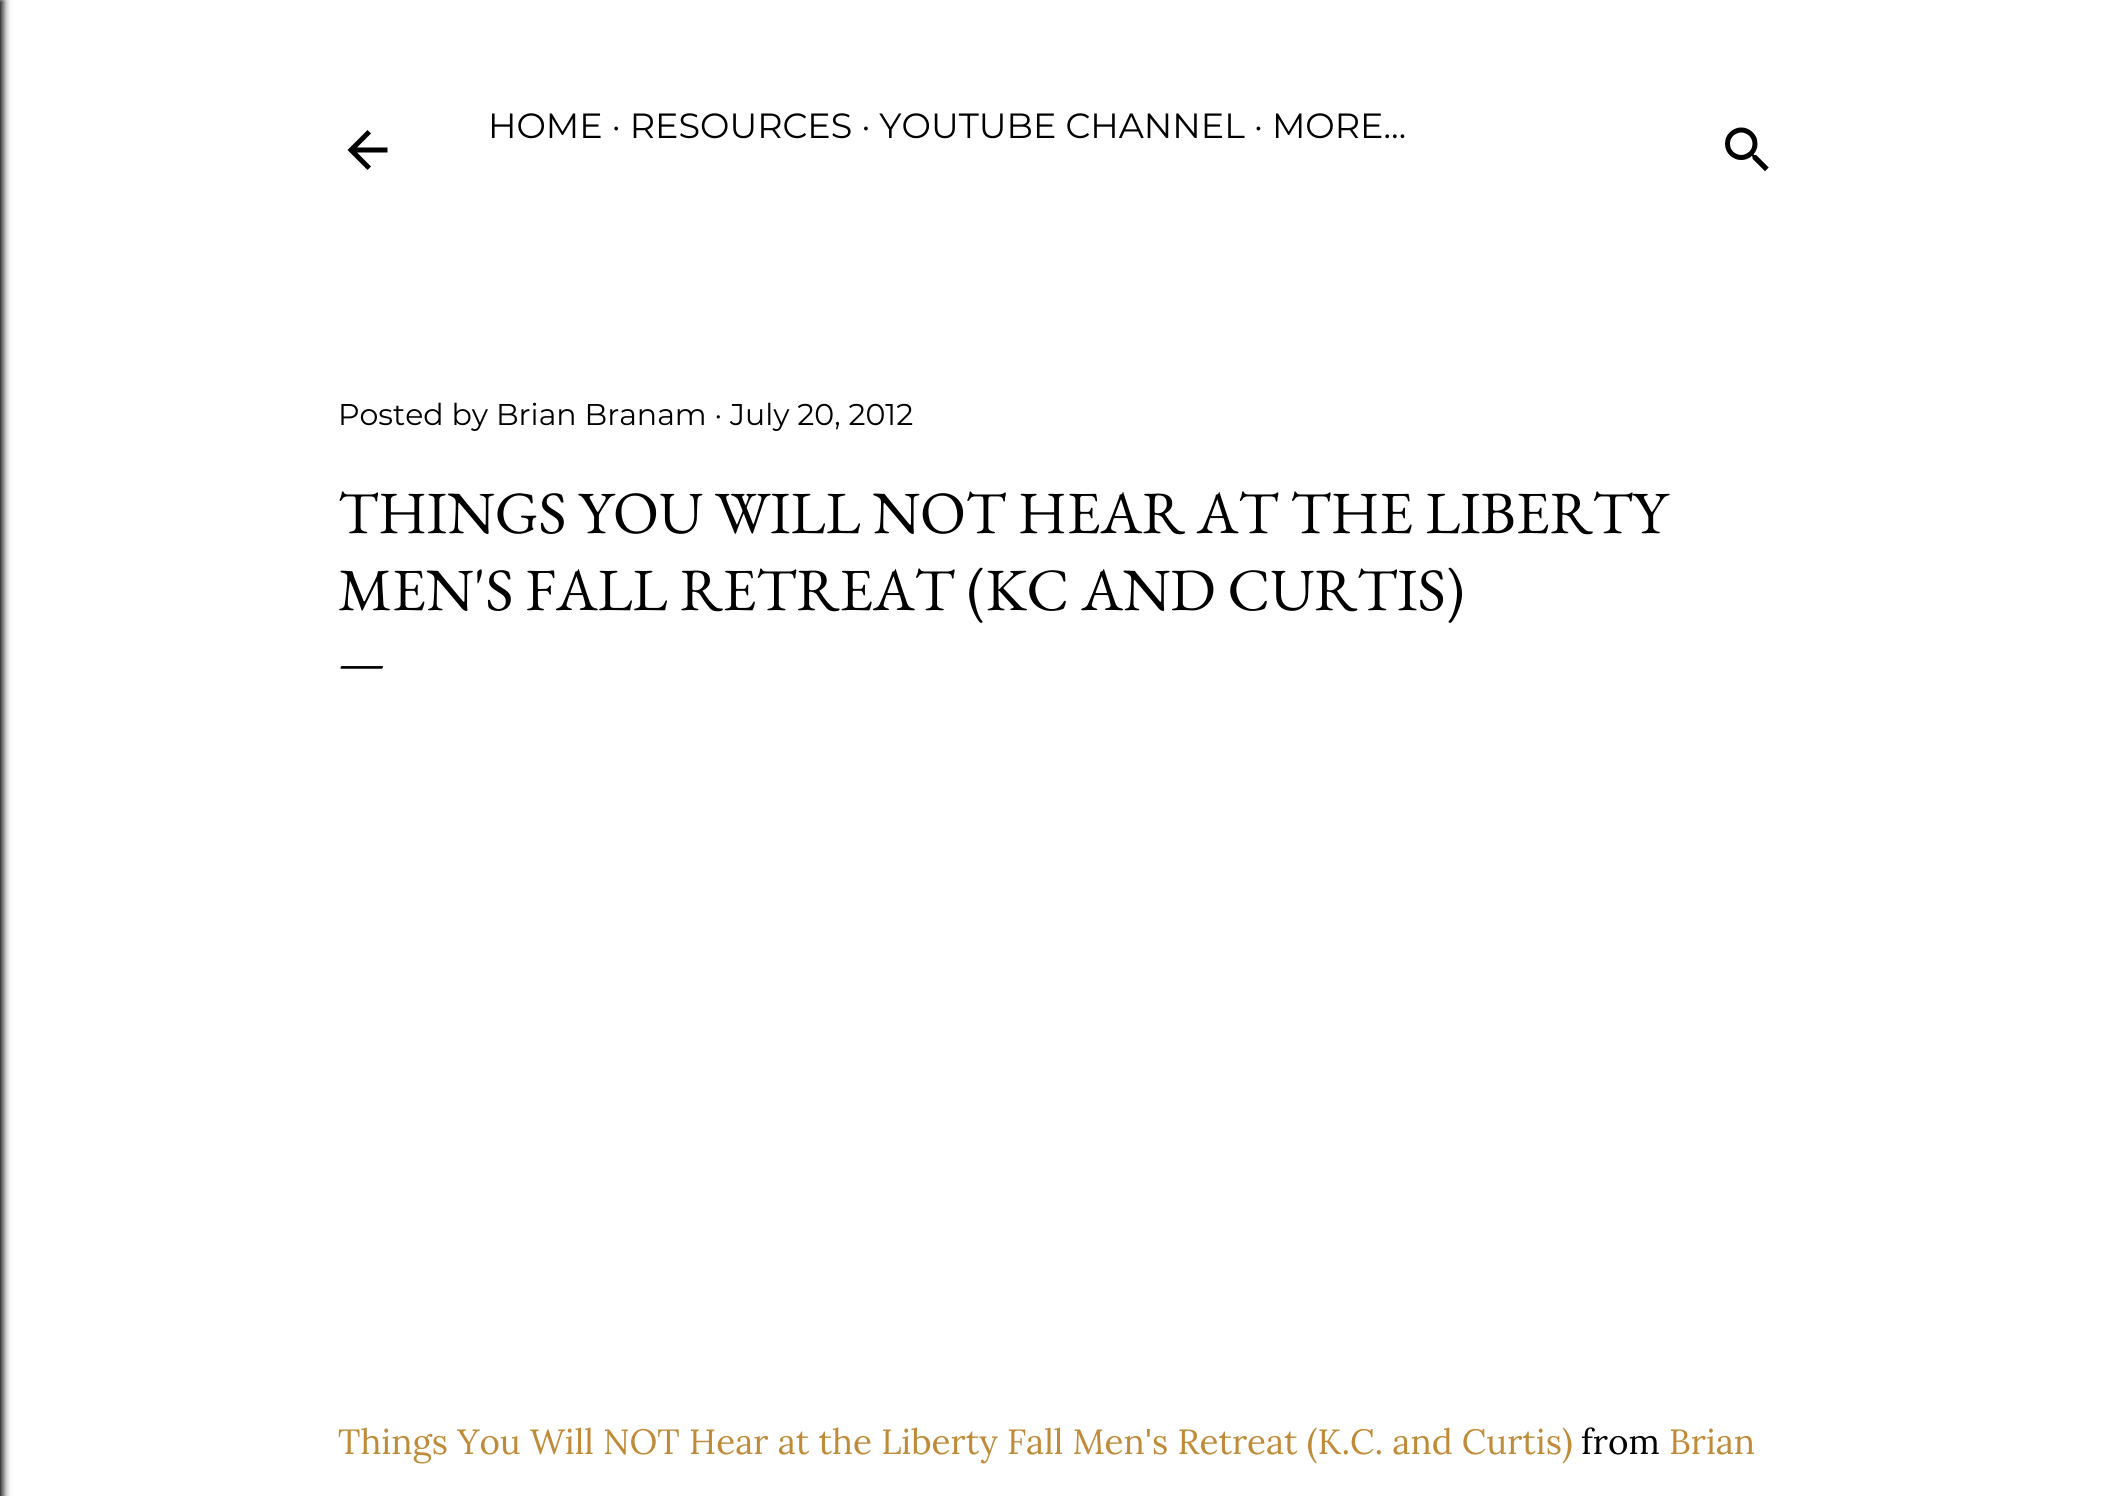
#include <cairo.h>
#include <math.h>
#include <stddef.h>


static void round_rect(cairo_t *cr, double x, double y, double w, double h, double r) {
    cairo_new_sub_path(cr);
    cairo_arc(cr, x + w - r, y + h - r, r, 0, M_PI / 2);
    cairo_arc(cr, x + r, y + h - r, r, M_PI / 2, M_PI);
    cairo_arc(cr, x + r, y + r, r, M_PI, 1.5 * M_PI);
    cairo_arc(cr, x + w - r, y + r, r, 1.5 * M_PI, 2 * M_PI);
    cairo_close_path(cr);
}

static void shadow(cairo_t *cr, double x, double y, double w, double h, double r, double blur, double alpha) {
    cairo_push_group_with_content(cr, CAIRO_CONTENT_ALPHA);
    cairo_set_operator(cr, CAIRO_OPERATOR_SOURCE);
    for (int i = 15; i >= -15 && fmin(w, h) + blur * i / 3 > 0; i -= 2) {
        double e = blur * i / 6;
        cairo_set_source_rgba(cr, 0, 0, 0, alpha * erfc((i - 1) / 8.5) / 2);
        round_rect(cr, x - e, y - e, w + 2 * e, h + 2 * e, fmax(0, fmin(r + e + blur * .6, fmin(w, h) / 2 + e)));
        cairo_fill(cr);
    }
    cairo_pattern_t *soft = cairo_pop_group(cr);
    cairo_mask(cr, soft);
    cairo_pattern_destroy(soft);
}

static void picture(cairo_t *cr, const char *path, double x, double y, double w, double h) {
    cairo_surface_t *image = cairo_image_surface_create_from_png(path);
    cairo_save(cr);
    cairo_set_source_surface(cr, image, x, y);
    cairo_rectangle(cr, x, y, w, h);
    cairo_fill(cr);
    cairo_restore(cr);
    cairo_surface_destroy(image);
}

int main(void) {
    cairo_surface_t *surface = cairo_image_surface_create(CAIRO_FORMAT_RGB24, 2113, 1496);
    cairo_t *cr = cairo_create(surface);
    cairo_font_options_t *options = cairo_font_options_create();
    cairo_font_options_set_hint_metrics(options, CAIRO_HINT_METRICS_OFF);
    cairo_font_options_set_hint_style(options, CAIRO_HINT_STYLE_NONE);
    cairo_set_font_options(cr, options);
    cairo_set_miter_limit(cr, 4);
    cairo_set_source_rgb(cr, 1, 1, 1);
    cairo_paint(cr);
    cairo_set_source_rgb(cr, 0, 0, 0);
    shadow(cr, -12, 0, 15, 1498, 0, 4, 1);
    picture(cr, "img1.png", 347, 130, 41, 40);
    cairo_select_font_face(cr, "Montserrat", CAIRO_FONT_SLANT_NORMAL, CAIRO_FONT_WEIGHT_NORMAL);
    cairo_set_font_size(cr, 35);
    cairo_set_source_rgb(cr, 0, 0, 0);
    cairo_move_to(cr, 488, 138);
    cairo_show_text(cr, "HOME · RESOURCES · YOUTUBE CHANNEL · MORE…");
    picture(cr, "img2.png", 1725, 127, 44, 45);
    cairo_set_font_size(cr, 30);
    cairo_move_to(cr, 338, 425);
    cairo_show_text(cr, "Posted by Brian Branam · July 20, 2012");
    cairo_select_font_face(cr, "EB Garamond", CAIRO_FONT_SLANT_NORMAL, CAIRO_FONT_WEIGHT_NORMAL);
    cairo_set_font_size(cr, 60);
    cairo_move_to(cr, 338, 533);
    cairo_show_text(cr, "THINGS YOU WILL NOT HEAR AT THE LIBERTY");
    cairo_move_to(cr, 338, 610);
    cairo_show_text(cr, "MEN'S FALL RETREAT (KC AND CURTIS)");
    cairo_set_font_size(cr, 50);
    cairo_move_to(cr, 338, 678);
    cairo_show_text(cr, "—");
    cairo_select_font_face(cr, "Lora", CAIRO_FONT_SLANT_NORMAL, CAIRO_FONT_WEIGHT_NORMAL);
    cairo_set_font_size(cr, 35);
    cairo_set_source_rgb(cr, 0.749, 0.545, 0.22);
    cairo_move_to(cr, 338, 1454);
    cairo_show_text(cr, "Things You Will NOT Hear at the Liberty Fall Men's Retreat (K.C. and Curtis)");
    cairo_set_source_rgb(cr, 0, 0, 0);
    cairo_move_to(cr, 1581, 1454);
    cairo_show_text(cr, "from");
    cairo_set_source_rgb(cr, 0.749, 0.545, 0.22);
    cairo_move_to(cr, 1669, 1454);
    cairo_show_text(cr, "Brian");
    cairo_surface_write_to_png(surface, "page.png");
    cairo_font_options_destroy(options);
    cairo_destroy(cr);
    cairo_surface_destroy(surface);
    return 0;
}
